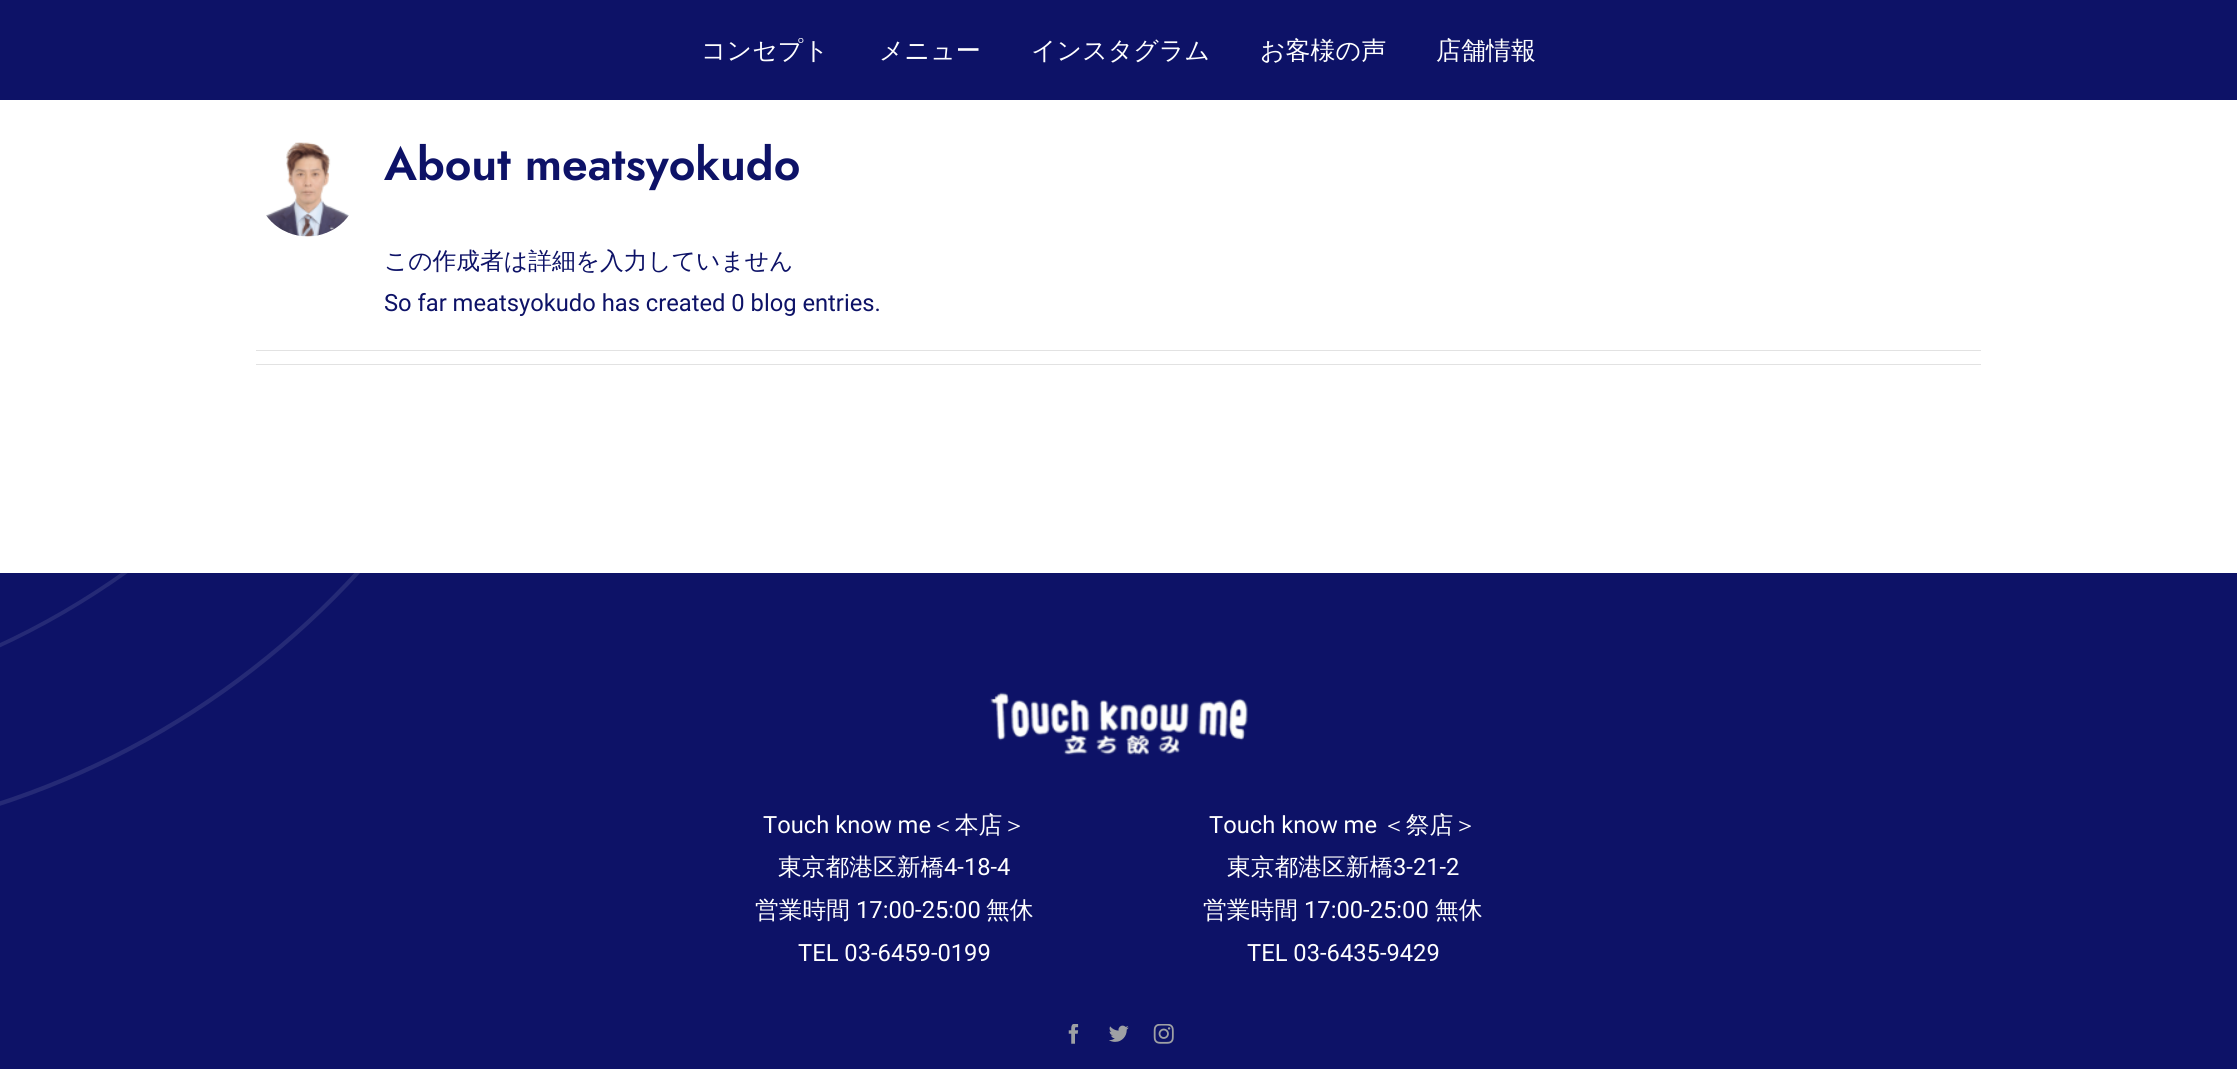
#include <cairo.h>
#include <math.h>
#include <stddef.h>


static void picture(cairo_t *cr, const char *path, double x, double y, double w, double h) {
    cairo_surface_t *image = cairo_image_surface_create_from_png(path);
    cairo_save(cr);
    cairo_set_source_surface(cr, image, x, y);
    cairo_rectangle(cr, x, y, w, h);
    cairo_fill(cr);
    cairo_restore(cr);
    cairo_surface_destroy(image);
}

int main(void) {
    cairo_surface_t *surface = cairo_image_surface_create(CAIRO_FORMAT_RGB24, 2237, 1069);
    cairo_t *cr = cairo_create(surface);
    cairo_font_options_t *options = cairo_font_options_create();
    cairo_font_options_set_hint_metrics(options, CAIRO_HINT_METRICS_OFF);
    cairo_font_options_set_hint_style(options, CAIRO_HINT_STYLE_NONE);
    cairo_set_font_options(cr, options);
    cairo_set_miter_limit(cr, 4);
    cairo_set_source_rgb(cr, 1, 1, 1);
    cairo_paint(cr);
    cairo_set_source_rgb(cr, 0.051, 0.071, 0.404);
    cairo_rectangle(cr, 0, 0, 2237, 100);
    cairo_fill(cr);
    cairo_select_font_face(cr, "WenQuanYi Zen Hei Medium", CAIRO_FONT_SLANT_NORMAL, CAIRO_FONT_WEIGHT_NORMAL);
    cairo_set_font_size(cr, 25);
    cairo_set_source_rgb(cr, 1, 1, 1);
    cairo_move_to(cr, 701, 59);
    cairo_show_text(cr, "コンセプト");
    cairo_move_to(cr, 879, 59);
    cairo_show_text(cr, "メニュー");
    cairo_move_to(cr, 1031, 59);
    cairo_show_text(cr, "インスタグラム");
    cairo_move_to(cr, 1260, 59);
    cairo_show_text(cr, "お客様の声");
    cairo_move_to(cr, 1436, 59);
    cairo_show_text(cr, "店舗情報");
    picture(cr, "img1.png", 266, 142, 83, 95);
    cairo_select_font_face(cr, "Jost SemiBold", CAIRO_FONT_SLANT_NORMAL, CAIRO_FONT_WEIGHT_NORMAL);
    cairo_set_font_size(cr, 46.25);
    cairo_set_source_rgb(cr, 0.051, 0.071, 0.404);
    cairo_move_to(cr, 384, 180);
    cairo_show_text(cr, "About meatsyokudo");
    cairo_select_font_face(cr, "WenQuanYi Zen Hei Medium", CAIRO_FONT_SLANT_NORMAL, CAIRO_FONT_WEIGHT_NORMAL);
    cairo_set_font_size(cr, 23.75);
    cairo_move_to(cr, 384, 269);
    cairo_show_text(cr, "この作成者は詳細を入力していません");
    cairo_select_font_face(cr, "Roboto", CAIRO_FONT_SLANT_NORMAL, CAIRO_FONT_WEIGHT_NORMAL);
    cairo_move_to(cr, 384, 311);
    cairo_show_text(cr, "So far meatsyokudo has created 0 blog entries.");
    cairo_set_source_rgb(cr, 0.886, 0.886, 0.886);
    cairo_rectangle(cr, 256, 350, 1725, 1);
    cairo_fill(cr);
    cairo_rectangle(cr, 256, 364, 1725, 1);
    cairo_fill(cr);
    cairo_set_source_rgb(cr, 0.051, 0.071, 0.404);
    cairo_rectangle(cr, 0, 573, 2237, 496);
    cairo_fill(cr);
    cairo_save(cr);
    cairo_rectangle(cr, 0, 573, 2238, 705);
    cairo_clip(cr);
    cairo_new_path(cr);
    cairo_move_to(cr, -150, 697);
    cairo_curve_to(cr, -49, 673.5, 44.5, 630, 126.5, 571.5);
    cairo_set_source_rgb(cr, 0.145, 0.165, 0.463);
    cairo_set_line_width(cr, 3.9);
    cairo_stroke(cr);
    cairo_new_path(cr);
    cairo_move_to(cr, -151.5, 838);
    cairo_curve_to(cr, 50, 811.5, 228.5, 714, 359, 571);
    cairo_set_line_width(cr, 4.3);
    cairo_stroke(cr);
    cairo_restore(cr);
    picture(cr, "img2.png", 989, 692, 259, 63);
    cairo_set_source_rgb(cr, 1, 1, 1);
    cairo_move_to(cr, 763, 833);
    cairo_show_text(cr, "Touch know me");
    cairo_select_font_face(cr, "WenQuanYi Zen Hei Medium", CAIRO_FONT_SLANT_NORMAL, CAIRO_FONT_WEIGHT_NORMAL);
    cairo_move_to(cr, 931, 833);
    cairo_show_text(cr, "＜本店＞");
    cairo_move_to(cr, 778, 875);
    cairo_show_text(cr, "東京都港区新橋");
    cairo_select_font_face(cr, "Roboto", CAIRO_FONT_SLANT_NORMAL, CAIRO_FONT_WEIGHT_NORMAL);
    cairo_move_to(cr, 944, 875);
    cairo_show_text(cr, "4-18-4");
    cairo_select_font_face(cr, "WenQuanYi Zen Hei Medium", CAIRO_FONT_SLANT_NORMAL, CAIRO_FONT_WEIGHT_NORMAL);
    cairo_move_to(cr, 755, 918);
    cairo_show_text(cr, "営業時間");
    cairo_select_font_face(cr, "Roboto", CAIRO_FONT_SLANT_NORMAL, CAIRO_FONT_WEIGHT_NORMAL);
    cairo_move_to(cr, 856, 918);
    cairo_show_text(cr, "17:00-25:00");
    cairo_select_font_face(cr, "WenQuanYi Zen Hei Medium", CAIRO_FONT_SLANT_NORMAL, CAIRO_FONT_WEIGHT_NORMAL);
    cairo_move_to(cr, 986, 918);
    cairo_show_text(cr, "無休");
    cairo_select_font_face(cr, "Roboto", CAIRO_FONT_SLANT_NORMAL, CAIRO_FONT_WEIGHT_NORMAL);
    cairo_move_to(cr, 798, 961);
    cairo_show_text(cr, "TEL 03-6459-0199");
    cairo_move_to(cr, 1209, 833);
    cairo_show_text(cr, "Touch know me");
    cairo_select_font_face(cr, "WenQuanYi Zen Hei Medium", CAIRO_FONT_SLANT_NORMAL, CAIRO_FONT_WEIGHT_NORMAL);
    cairo_move_to(cr, 1382, 833);
    cairo_show_text(cr, "＜祭店＞");
    cairo_move_to(cr, 1227, 875);
    cairo_show_text(cr, "東京都港区新橋");
    cairo_select_font_face(cr, "Roboto", CAIRO_FONT_SLANT_NORMAL, CAIRO_FONT_WEIGHT_NORMAL);
    cairo_move_to(cr, 1393, 875);
    cairo_show_text(cr, "3-21-2");
    cairo_select_font_face(cr, "WenQuanYi Zen Hei Medium", CAIRO_FONT_SLANT_NORMAL, CAIRO_FONT_WEIGHT_NORMAL);
    cairo_move_to(cr, 1203, 918);
    cairo_show_text(cr, "営業時間");
    cairo_select_font_face(cr, "Roboto", CAIRO_FONT_SLANT_NORMAL, CAIRO_FONT_WEIGHT_NORMAL);
    cairo_move_to(cr, 1304, 918);
    cairo_show_text(cr, "17:00-25:00");
    cairo_select_font_face(cr, "WenQuanYi Zen Hei Medium", CAIRO_FONT_SLANT_NORMAL, CAIRO_FONT_WEIGHT_NORMAL);
    cairo_move_to(cr, 1435, 918);
    cairo_show_text(cr, "無休");
    cairo_select_font_face(cr, "Roboto", CAIRO_FONT_SLANT_NORMAL, CAIRO_FONT_WEIGHT_NORMAL);
    cairo_move_to(cr, 1247, 961);
    cairo_show_text(cr, "TEL 03-6435-9429");
    picture(cr, "img3.png", 1068, 1024, 11, 20);
    picture(cr, "img4.png", 1109, 1025, 20, 17);
    picture(cr, "img5.png", 1153, 1024, 21, 20);
    cairo_surface_write_to_png(surface, "page.png");
    cairo_font_options_destroy(options);
    cairo_destroy(cr);
    cairo_surface_destroy(surface);
    return 0;
}
